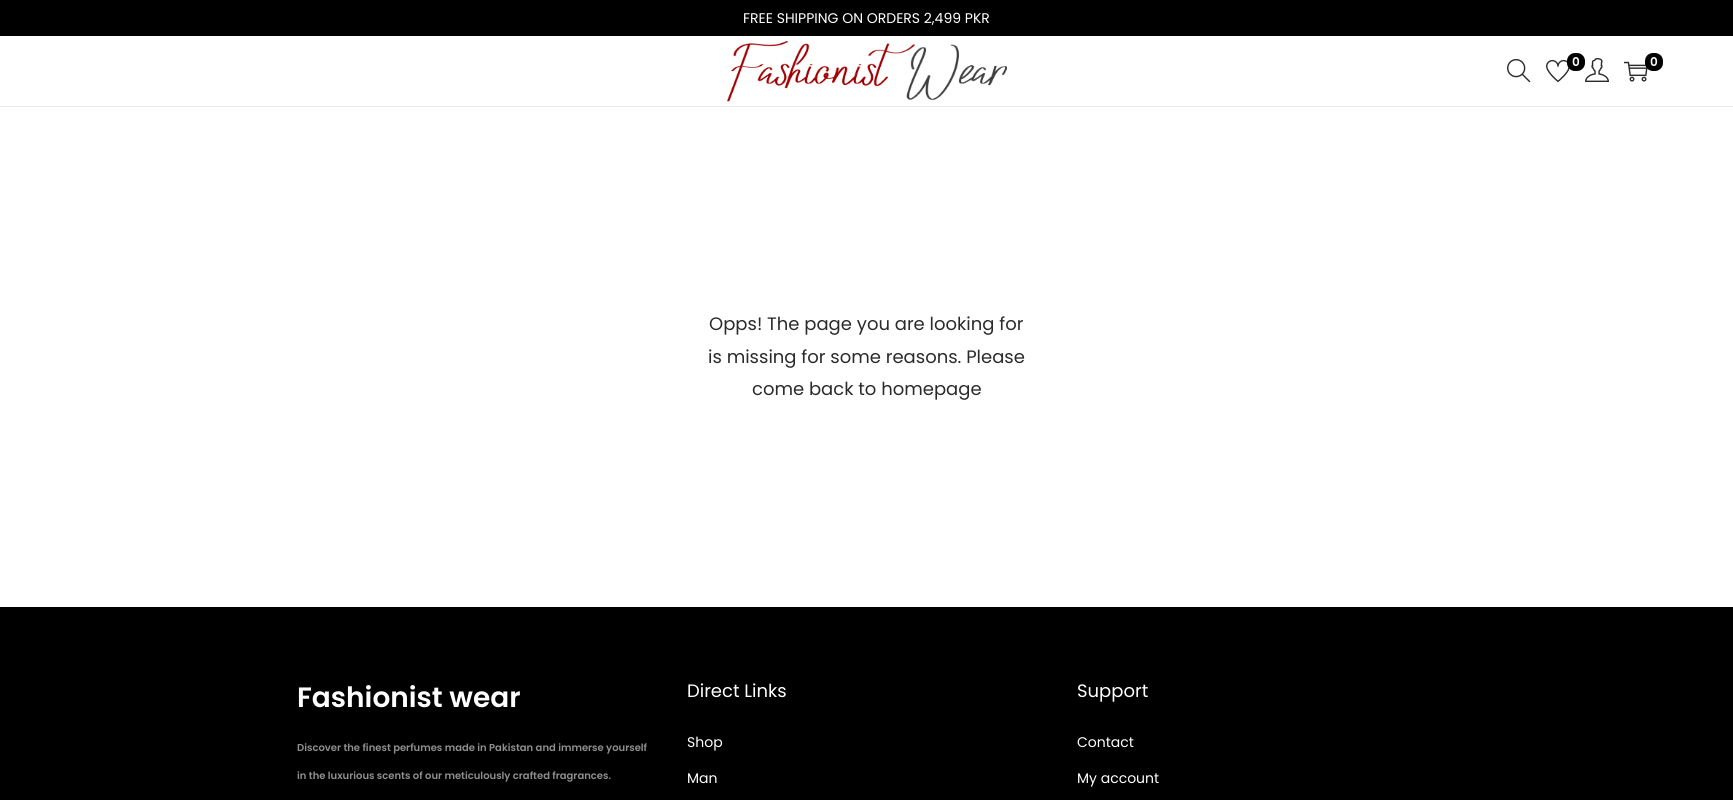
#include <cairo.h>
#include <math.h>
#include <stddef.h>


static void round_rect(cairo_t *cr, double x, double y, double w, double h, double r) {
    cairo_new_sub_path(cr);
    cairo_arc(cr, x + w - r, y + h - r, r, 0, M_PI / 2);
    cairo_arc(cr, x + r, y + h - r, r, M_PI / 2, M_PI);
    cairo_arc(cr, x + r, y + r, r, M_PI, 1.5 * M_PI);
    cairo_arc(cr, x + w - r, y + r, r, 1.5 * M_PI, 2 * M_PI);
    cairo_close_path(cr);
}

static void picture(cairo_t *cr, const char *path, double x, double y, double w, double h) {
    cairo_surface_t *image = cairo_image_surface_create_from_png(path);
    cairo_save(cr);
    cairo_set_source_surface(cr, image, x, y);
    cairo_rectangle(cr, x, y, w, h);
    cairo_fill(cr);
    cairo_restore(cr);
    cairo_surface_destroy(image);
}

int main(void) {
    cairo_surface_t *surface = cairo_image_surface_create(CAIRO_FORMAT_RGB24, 1733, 800);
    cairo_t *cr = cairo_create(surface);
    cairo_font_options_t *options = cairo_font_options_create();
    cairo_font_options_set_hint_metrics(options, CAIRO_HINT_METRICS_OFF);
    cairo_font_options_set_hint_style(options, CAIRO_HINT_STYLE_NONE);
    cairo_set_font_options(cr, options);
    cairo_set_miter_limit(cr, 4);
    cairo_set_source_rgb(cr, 1, 1, 1);
    cairo_paint(cr);
    cairo_set_source_rgb(cr, 0, 0, 0);
    cairo_rectangle(cr, 0, 0, 1733, 36);
    cairo_fill(cr);
    cairo_select_font_face(cr, "Poppins", CAIRO_FONT_SLANT_NORMAL, CAIRO_FONT_WEIGHT_NORMAL);
    cairo_set_font_size(cr, 14);
    cairo_set_source_rgb(cr, 1, 1, 1);
    cairo_move_to(cr, 743, 23);
    cairo_show_text(cr, "FREE SHIPPING ON ORDERS 2,499 PKR");
    cairo_set_source_rgb(cr, 0.918, 0.918, 0.918);
    cairo_rectangle(cr, 0, 106, 1733, 1);
    cairo_fill(cr);
    picture(cr, "img1.png", 727, 41, 280, 61);
    picture(cr, "img2.png", 1507, 59, 24, 24);
    picture(cr, "img3.png", 1546, 59, 24, 24);
    cairo_set_source_rgb(cr, 0, 0, 0);
    round_rect(cr, 1567, 53, 18, 18, 8);
    cairo_fill(cr);
    cairo_select_font_face(cr, "Poppins SemiBold", CAIRO_FONT_SLANT_NORMAL, CAIRO_FONT_WEIGHT_NORMAL);
    cairo_set_font_size(cr, 12);
    cairo_set_source_rgb(cr, 1, 1, 1);
    cairo_move_to(cr, 1572, 66);
    cairo_show_text(cr, "0");
    picture(cr, "img4.png", 1585, 58, 24, 24);
    picture(cr, "img5.png", 1624, 61, 24, 21);
    cairo_set_source_rgb(cr, 0, 0, 0);
    round_rect(cr, 1645, 53, 18, 18, 8);
    cairo_fill(cr);
    cairo_set_source_rgb(cr, 1, 1, 1);
    cairo_move_to(cr, 1650, 66);
    cairo_show_text(cr, "0");
    cairo_select_font_face(cr, "Poppins", CAIRO_FONT_SLANT_NORMAL, CAIRO_FONT_WEIGHT_NORMAL);
    cairo_set_font_size(cr, 18);
    cairo_set_source_rgb(cr, 0.169, 0.169, 0.169);
    cairo_move_to(cr, 709, 330);
    cairo_show_text(cr, "Opps! The page you are looking for");
    cairo_move_to(cr, 708, 363);
    cairo_show_text(cr, "is missing for some reasons. Please");
    cairo_move_to(cr, 752, 395);
    cairo_show_text(cr, "come back to homepage");
    cairo_set_source_rgb(cr, 0, 0, 0);
    cairo_rectangle(cr, 0, 607, 1733, 193);
    cairo_fill(cr);
    cairo_select_font_face(cr, "Poppins SemiBold", CAIRO_FONT_SLANT_NORMAL, CAIRO_FONT_WEIGHT_NORMAL);
    cairo_set_font_size(cr, 28);
    cairo_set_source_rgb(cr, 1, 1, 1);
    cairo_move_to(cr, 297, 707);
    cairo_show_text(cr, "Fashionist wear");
    cairo_set_font_size(cr, 10);
    cairo_set_source_rgb(cr, 0.561, 0.561, 0.561);
    cairo_move_to(cr, 297, 751);
    cairo_show_text(cr, "Discover the finest perfumes made in Pakistan and immerse yourself");
    cairo_move_to(cr, 297, 779);
    cairo_show_text(cr, "in the luxurious scents of our meticulously crafted fragrances.");
    cairo_select_font_face(cr, "Poppins", CAIRO_FONT_SLANT_NORMAL, CAIRO_FONT_WEIGHT_NORMAL);
    cairo_set_font_size(cr, 18);
    cairo_set_source_rgb(cr, 1, 1, 1);
    cairo_move_to(cr, 687, 697);
    cairo_show_text(cr, "Direct Links");
    cairo_set_font_size(cr, 14);
    cairo_move_to(cr, 687, 747);
    cairo_show_text(cr, "Shop");
    cairo_move_to(cr, 687, 783);
    cairo_show_text(cr, "Man");
    cairo_set_font_size(cr, 18);
    cairo_move_to(cr, 1077, 697);
    cairo_show_text(cr, "Support");
    cairo_set_font_size(cr, 14);
    cairo_move_to(cr, 1077, 747);
    cairo_show_text(cr, "Contact");
    cairo_move_to(cr, 1077, 783);
    cairo_show_text(cr, "My account");
    cairo_surface_write_to_png(surface, "page.png");
    cairo_font_options_destroy(options);
    cairo_destroy(cr);
    cairo_surface_destroy(surface);
    return 0;
}
